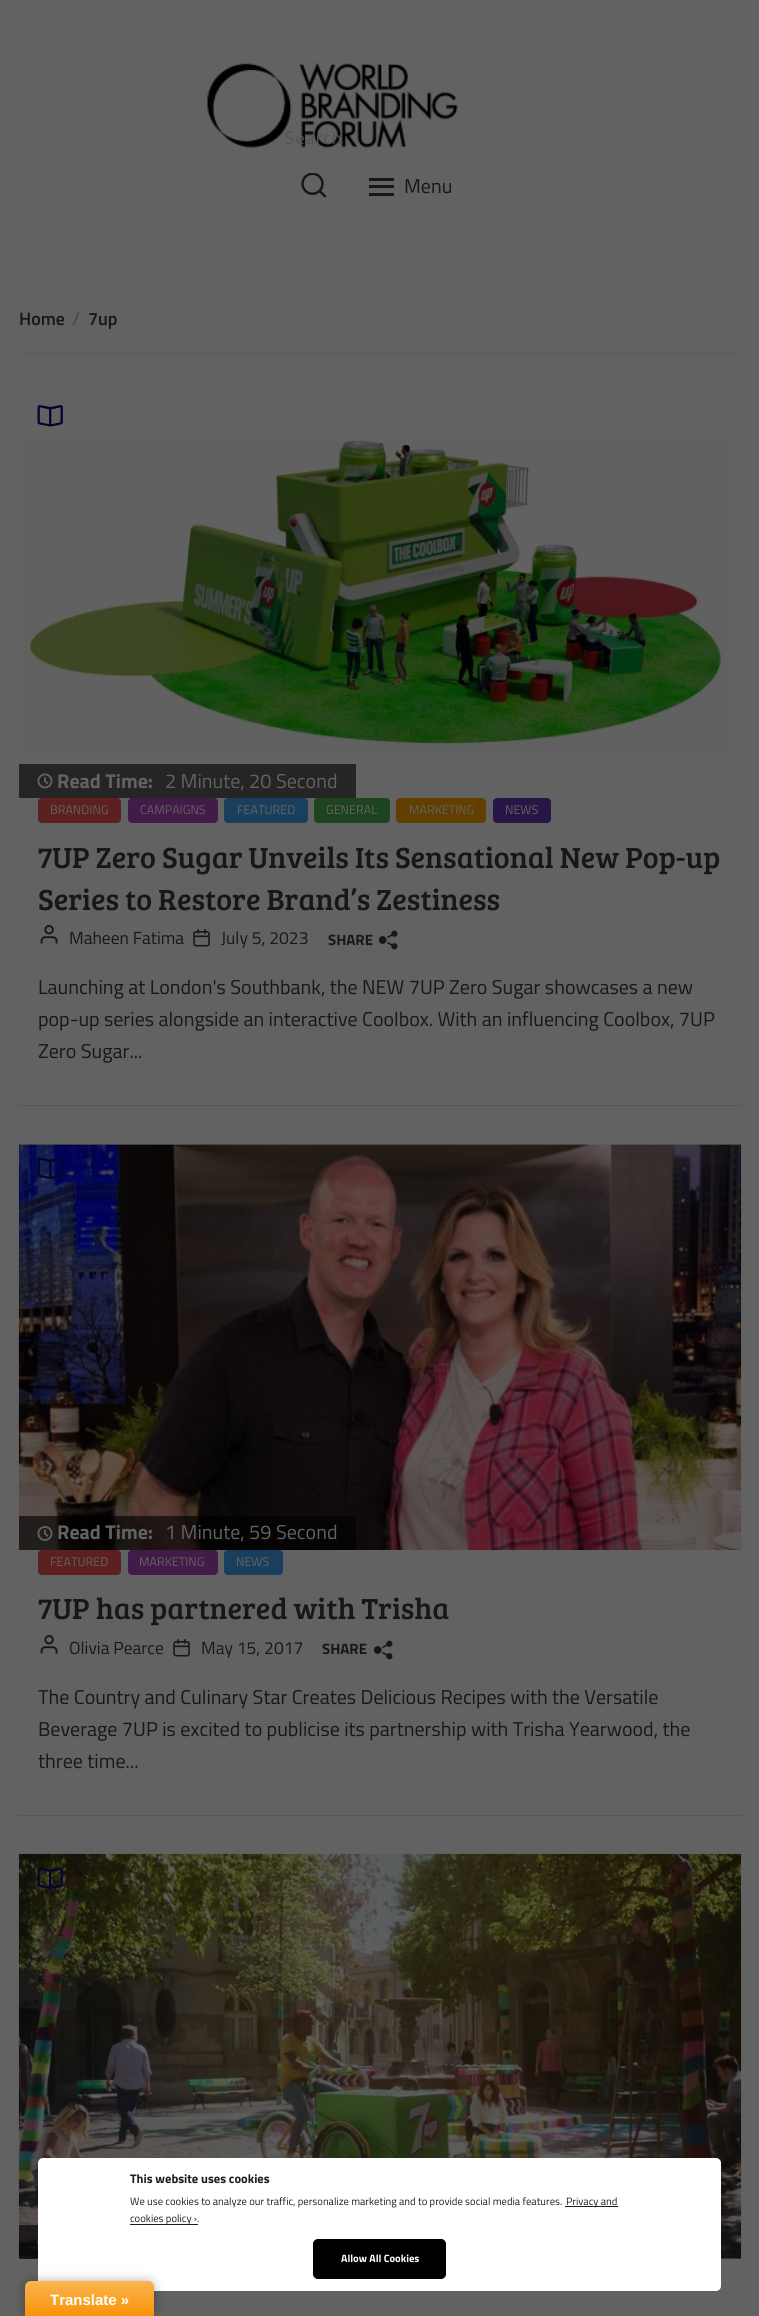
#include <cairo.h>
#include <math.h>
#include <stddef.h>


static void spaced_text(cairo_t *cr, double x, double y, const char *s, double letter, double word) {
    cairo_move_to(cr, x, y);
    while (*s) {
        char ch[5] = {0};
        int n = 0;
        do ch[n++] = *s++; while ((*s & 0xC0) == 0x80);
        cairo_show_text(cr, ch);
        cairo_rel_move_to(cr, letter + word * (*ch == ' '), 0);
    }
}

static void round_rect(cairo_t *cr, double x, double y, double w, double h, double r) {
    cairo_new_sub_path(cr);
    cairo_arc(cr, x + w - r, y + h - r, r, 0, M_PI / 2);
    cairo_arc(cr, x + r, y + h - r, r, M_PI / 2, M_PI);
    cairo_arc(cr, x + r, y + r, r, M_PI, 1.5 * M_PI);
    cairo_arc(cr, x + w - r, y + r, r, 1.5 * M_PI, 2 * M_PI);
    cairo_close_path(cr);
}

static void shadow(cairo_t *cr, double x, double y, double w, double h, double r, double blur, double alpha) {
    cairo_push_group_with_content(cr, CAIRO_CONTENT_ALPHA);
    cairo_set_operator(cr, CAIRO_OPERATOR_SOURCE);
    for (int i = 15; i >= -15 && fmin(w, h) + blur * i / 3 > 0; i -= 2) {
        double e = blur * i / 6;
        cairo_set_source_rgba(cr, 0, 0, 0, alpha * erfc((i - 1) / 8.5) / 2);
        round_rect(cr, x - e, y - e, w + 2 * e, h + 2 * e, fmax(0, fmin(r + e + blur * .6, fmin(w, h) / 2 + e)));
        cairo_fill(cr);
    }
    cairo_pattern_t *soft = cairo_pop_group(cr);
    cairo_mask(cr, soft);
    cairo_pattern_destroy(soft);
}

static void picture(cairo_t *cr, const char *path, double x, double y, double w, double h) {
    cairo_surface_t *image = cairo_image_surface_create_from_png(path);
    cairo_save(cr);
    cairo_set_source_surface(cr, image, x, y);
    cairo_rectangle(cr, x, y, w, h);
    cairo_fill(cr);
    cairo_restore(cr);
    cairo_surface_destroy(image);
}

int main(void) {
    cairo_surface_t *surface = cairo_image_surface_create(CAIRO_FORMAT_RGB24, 759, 2316);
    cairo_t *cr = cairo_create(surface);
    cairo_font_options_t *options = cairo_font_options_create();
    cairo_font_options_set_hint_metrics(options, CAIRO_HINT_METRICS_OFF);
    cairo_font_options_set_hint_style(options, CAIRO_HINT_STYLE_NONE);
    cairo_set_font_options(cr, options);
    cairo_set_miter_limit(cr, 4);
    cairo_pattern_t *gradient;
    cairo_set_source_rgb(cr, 0.384, 0.384, 0.384);
    cairo_paint(cr);
    picture(cr, "img1.png", 207, 62, 251, 86);
    cairo_select_font_face(cr, "Titillium Web", CAIRO_FONT_SLANT_NORMAL, CAIRO_FONT_WEIGHT_NORMAL);
    cairo_set_font_size(cr, 17.5);
    cairo_set_source_rgb(cr, 0.325, 0.325, 0.325);
    spaced_text(cr, 285, 144, "Search", 1.25, 0);
    picture(cr, "img2.png", 301, 173, 25, 25);
    cairo_set_source_rgb(cr, 0.09, 0.09, 0.09);
    cairo_rectangle(cr, 369, 178, 25, 3);
    cairo_fill(cr);
    cairo_rectangle(cr, 369, 185, 25, 3);
    cairo_fill(cr);
    cairo_rectangle(cr, 369, 193, 25, 3);
    cairo_fill(cr);
    cairo_set_font_size(cr, 20);
    cairo_move_to(cr, 404, 193);
    cairo_show_text(cr, "Menu");
    cairo_set_source_rgb(cr, 0.357, 0.353, 0.353);
    cairo_rectangle(cr, 19, 353, 722, 1);
    cairo_fill(cr);
    cairo_select_font_face(cr, "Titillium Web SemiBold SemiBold", CAIRO_FONT_SLANT_NORMAL, CAIRO_FONT_WEIGHT_NORMAL);
    cairo_set_font_size(cr, 18);
    cairo_set_source_rgb(cr, 0.09, 0.09, 0.09);
    cairo_move_to(cr, 19, 325);
    cairo_show_text(cr, "Home");
    cairo_set_source_rgb(cr, 0.29, 0.29, 0.29);
    cairo_move_to(cr, 72, 325);
    cairo_show_text(cr, "/");
    cairo_set_source_rgb(cr, 0.09, 0.09, 0.09);
    cairo_move_to(cr, 88, 325);
    cairo_show_text(cr, "7up");
    picture(cr, "img3.png", 37, 405, 26, 22);
    picture(cr, "img4.png", 19, 437, 708, 316);
    cairo_set_source_rgb(cr, 0.145, 0.145, 0.145);
    cairo_rectangle(cr, 19, 764, 337, 34);
    cairo_fill(cr);
    picture(cr, "img5.png", 37, 773, 16, 16);
    cairo_select_font_face(cr, "Titillium Web", CAIRO_FONT_SLANT_NORMAL, CAIRO_FONT_WEIGHT_BOLD);
    cairo_set_font_size(cr, 20);
    cairo_set_source_rgb(cr, 0.384, 0.384, 0.384);
    cairo_move_to(cr, 57, 788);
    cairo_show_text(cr, "Read Time:");
    cairo_select_font_face(cr, "Titillium Web", CAIRO_FONT_SLANT_NORMAL, CAIRO_FONT_WEIGHT_NORMAL);
    cairo_move_to(cr, 165, 788);
    cairo_show_text(cr, "2 Minute, 20 Second");
    cairo_set_source_rgb(cr, 0.357, 0.125, 0.122);
    round_rect(cr, 38, 798, 83, 25, 4);
    cairo_fill(cr);
    cairo_set_font_size(cr, 12.5);
    cairo_set_source_rgb(cr, 0.384, 0.384, 0.384);
    cairo_move_to(cr, 50, 814);
    cairo_show_text(cr, "BRANDING");
    cairo_set_source_rgb(cr, 0.259, 0.11, 0.282);
    round_rect(cr, 128, 798, 90, 25, 4);
    cairo_fill(cr);
    cairo_set_source_rgb(cr, 0.384, 0.384, 0.384);
    cairo_move_to(cr, 140, 814);
    cairo_show_text(cr, "CAMPAIGNS");
    cairo_set_source_rgb(cr, 0.102, 0.247, 0.369);
    round_rect(cr, 224, 798, 84, 25, 4);
    cairo_fill(cr);
    cairo_set_source_rgb(cr, 0.384, 0.384, 0.384);
    cairo_move_to(cr, 237, 814);
    cairo_show_text(cr, "FEATURED");
    cairo_set_source_rgb(cr, 0.118, 0.263, 0.122);
    round_rect(cr, 314, 798, 76, 25, 4);
    cairo_fill(cr);
    cairo_set_source_rgb(cr, 0.384, 0.384, 0.384);
    cairo_move_to(cr, 326, 814);
    cairo_show_text(cr, "GENERAL");
    cairo_set_source_rgb(cr, 0.384, 0.247, 0.004);
    round_rect(cr, 396, 798, 90, 25, 4);
    cairo_fill(cr);
    cairo_set_source_rgb(cr, 0.384, 0.384, 0.384);
    cairo_move_to(cr, 409, 814);
    cairo_show_text(cr, "MARKETING");
    cairo_set_source_rgb(cr, 0.157, 0.09, 0.275);
    round_rect(cr, 493, 798, 58, 25, 4);
    cairo_fill(cr);
    cairo_set_source_rgb(cr, 0.384, 0.384, 0.384);
    cairo_move_to(cr, 505, 814);
    cairo_show_text(cr, "NEWS");
    cairo_select_font_face(cr, "Bree Serif", CAIRO_FONT_SLANT_NORMAL, CAIRO_FONT_WEIGHT_NORMAL);
    cairo_set_font_size(cr, 30);
    cairo_set_source_rgb(cr, 0.09, 0.09, 0.09);
    cairo_move_to(cr, 38, 868);
    cairo_show_text(cr, "7UP Zero Sugar Unveils Its Sensational New Pop-up");
    cairo_move_to(cr, 38, 910);
    cairo_show_text(cr, "Series to Restore Brand’s Zestiness");
    picture(cr, "img6.png", 40, 925, 18, 19);
    cairo_select_font_face(cr, "Titillium Web", CAIRO_FONT_SLANT_NORMAL, CAIRO_FONT_WEIGHT_NORMAL);
    cairo_set_font_size(cr, 17.5);
    cairo_move_to(cr, 69, 944);
    cairo_show_text(cr, "Maheen Fatima");
    picture(cr, "img7.png", 193, 929, 17, 18);
    cairo_move_to(cr, 221, 944);
    cairo_show_text(cr, "July 5, 2023");
    cairo_select_font_face(cr, "Titillium Web", CAIRO_FONT_SLANT_NORMAL, CAIRO_FONT_WEIGHT_BOLD);
    cairo_set_font_size(cr, 15);
    cairo_move_to(cr, 328, 945);
    cairo_show_text(cr, "SHARE");
    picture(cr, "img8.png", 379, 930, 19, 20);
    cairo_select_font_face(cr, "Titillium Web", CAIRO_FONT_SLANT_NORMAL, CAIRO_FONT_WEIGHT_NORMAL);
    cairo_set_font_size(cr, 20);
    cairo_move_to(cr, 38, 994);
    cairo_show_text(cr, "Launching at London's Southbank, the NEW 7UP Zero Sugar showcases a new");
    cairo_move_to(cr, 38, 1026);
    cairo_show_text(cr, "pop-up series alongside an interactive Coolbox. With an influencing Coolbox, 7UP");
    cairo_move_to(cr, 38, 1058);
    cairo_show_text(cr, "Zero Sugar...");
    cairo_set_source_rgb(cr, 0.345, 0.341, 0.341);
    cairo_rectangle(cr, 19, 1105, 722, 1);
    cairo_fill(cr);
    picture(cr, "img9.png", 18, 1143, 724, 407);
    picture(cr, "img10.png", 37, 1157, 26, 22);
    cairo_set_source_rgba(cr, 0.004, 0.004, 0.004, 0.63);
    cairo_rectangle(cr, 19, 1516, 337, 34);
    cairo_fill(cr);
    picture(cr, "img11.png", 37, 1526, 16, 15);
    cairo_select_font_face(cr, "Titillium Web", CAIRO_FONT_SLANT_NORMAL, CAIRO_FONT_WEIGHT_BOLD);
    cairo_set_source_rgb(cr, 0.384, 0.384, 0.384);
    cairo_move_to(cr, 57, 1539);
    cairo_show_text(cr, "Read Time:");
    cairo_select_font_face(cr, "Titillium Web", CAIRO_FONT_SLANT_NORMAL, CAIRO_FONT_WEIGHT_NORMAL);
    cairo_move_to(cr, 165, 1539);
    cairo_show_text(cr, "1 Minute, 59 Second");
    cairo_set_source_rgb(cr, 0.357, 0.125, 0.122);
    round_rect(cr, 38, 1550, 83, 25, 4);
    cairo_fill(cr);
    cairo_set_font_size(cr, 12.5);
    cairo_set_source_rgb(cr, 0.384, 0.384, 0.384);
    cairo_move_to(cr, 50, 1566);
    cairo_show_text(cr, "FEATURED");
    cairo_set_source_rgb(cr, 0.259, 0.11, 0.282);
    round_rect(cr, 128, 1550, 90, 25, 4);
    cairo_fill(cr);
    cairo_set_source_rgb(cr, 0.384, 0.384, 0.384);
    cairo_move_to(cr, 139, 1566);
    cairo_show_text(cr, "MARKETING");
    cairo_set_source_rgb(cr, 0.102, 0.247, 0.369);
    round_rect(cr, 224, 1550, 59, 25, 4);
    cairo_fill(cr);
    cairo_set_source_rgb(cr, 0.384, 0.384, 0.384);
    cairo_move_to(cr, 236, 1566);
    cairo_show_text(cr, "NEWS");
    cairo_select_font_face(cr, "Bree Serif", CAIRO_FONT_SLANT_NORMAL, CAIRO_FONT_WEIGHT_NORMAL);
    cairo_set_font_size(cr, 30);
    cairo_set_source_rgb(cr, 0.09, 0.09, 0.09);
    cairo_move_to(cr, 38, 1619);
    cairo_show_text(cr, "7UP has partnered with Trisha");
    picture(cr, "img6.png", 40, 1635, 18, 19);
    cairo_select_font_face(cr, "Titillium Web", CAIRO_FONT_SLANT_NORMAL, CAIRO_FONT_WEIGHT_NORMAL);
    cairo_set_font_size(cr, 17.5);
    cairo_move_to(cr, 69, 1654);
    cairo_show_text(cr, "Olivia Pearce");
    picture(cr, "img7.png", 173, 1639, 17, 18);
    cairo_move_to(cr, 201, 1654);
    cairo_show_text(cr, "May 15, 2017");
    cairo_select_font_face(cr, "Titillium Web", CAIRO_FONT_SLANT_NORMAL, CAIRO_FONT_WEIGHT_BOLD);
    cairo_set_font_size(cr, 15);
    cairo_move_to(cr, 322, 1654);
    cairo_show_text(cr, "SHARE");
    picture(cr, "img8.png", 374, 1640, 19, 20);
    cairo_select_font_face(cr, "Titillium Web", CAIRO_FONT_SLANT_NORMAL, CAIRO_FONT_WEIGHT_NORMAL);
    cairo_set_font_size(cr, 20);
    cairo_move_to(cr, 38, 1704);
    cairo_show_text(cr, "The Country and Culinary Star Creates Delicious Recipes with the Versatile");
    cairo_move_to(cr, 38, 1736);
    cairo_show_text(cr, "Beverage 7UP is excited to publicise its partnership with Trisha Yearwood, the");
    cairo_move_to(cr, 38, 1768);
    cairo_show_text(cr, "three time...");
    cairo_set_source_rgb(cr, 0.345, 0.341, 0.341);
    cairo_rectangle(cr, 19, 1815, 722, 1);
    cairo_fill(cr);
    picture(cr, "img12.png", 18, 1853, 724, 406);
    picture(cr, "img13.png", 37, 1867, 26, 22);
    cairo_set_source_rgba(cr, 0.004, 0.004, 0.004, 0.63);
    cairo_rectangle(cr, 19, 2225, 19, 34);
    cairo_fill(cr);
    picture(cr, "img14.png", 37, 2239, 1, 6);
    cairo_set_source_rgb(cr, 1, 1, 1);
    round_rect(cr, 38, 2158, 683, 133, 5);
    cairo_fill(cr);
    cairo_select_font_face(cr, "Titillium Web", CAIRO_FONT_SLANT_NORMAL, CAIRO_FONT_WEIGHT_BOLD);
    cairo_set_font_size(cr, 12.5);
    cairo_set_source_rgb(cr, 0.118, 0.118, 0.118);
    cairo_move_to(cr, 130, 2183);
    cairo_show_text(cr, "This website uses cookies");
    cairo_select_font_face(cr, "Titillium Web", CAIRO_FONT_SLANT_NORMAL, CAIRO_FONT_WEIGHT_NORMAL);
    cairo_set_font_size(cr, 10.6);
    cairo_move_to(cr, 130, 2205);
    cairo_show_text(cr, "We use cookies to analyze our traffic, personalize marketing and to provide social media features.");
    cairo_rectangle(cr, 565, 2206, 53, 1);
    cairo_fill(cr);
    cairo_move_to(cr, 566, 2205);
    cairo_show_text(cr, "Privacy and");
    cairo_rectangle(cr, 130, 2224, 68, 1);
    cairo_fill(cr);
    cairo_move_to(cr, 130, 2222);
    cairo_show_text(cr, "cookies policy ›.");
    cairo_set_source_rgb(cr, 0, 0, 0);
    round_rect(cr, 313.5, 2239.5, 132, 39, 4.5);
    cairo_fill_preserve(cr);
    cairo_set_line_width(cr, 1);
    cairo_stroke(cr);
    cairo_select_font_face(cr, "Titillium Web", CAIRO_FONT_SLANT_NORMAL, CAIRO_FONT_WEIGHT_BOLD);
    cairo_set_source_rgb(cr, 1, 1, 1);
    cairo_move_to(cr, 341, 2262);
    cairo_show_text(cr, "Allow All Cookies");
    cairo_set_source_rgb(cr, 0, 0, 0);
    shadow(cr, 25, 2281, 129, 35, 6, 5.5, 0.3);
    gradient = cairo_pattern_create_linear(89, 2281, 89, 2316);
    cairo_pattern_add_color_stop_rgba(gradient, 0, 0.984, 0.706, 0.314, 1);
    cairo_pattern_add_color_stop_rgba(gradient, 1, 0.973, 0.58, 0.024, 1);
    cairo_set_source(cr, gradient);
    cairo_pattern_destroy(gradient);
    cairo_new_path(cr);
    cairo_move_to(cr, 31, 2281);
    cairo_line_to(cr, 148, 2281);
    cairo_curve_to(cr, 151.5, 2281, 154, 2283.5, 154, 2287);
    cairo_line_to(cr, 154, 2316);
    cairo_line_to(cr, 25, 2316);
    cairo_line_to(cr, 25, 2287);
    cairo_curve_to(cr, 25, 2283.5, 27.5, 2281, 31, 2281);
    cairo_close_path(cr);
    cairo_fill(cr);
    cairo_select_font_face(cr, "Liberation Sans", CAIRO_FONT_SLANT_NORMAL, CAIRO_FONT_WEIGHT_BOLD);
    cairo_set_font_size(cr, 15);
    cairo_set_source_rgb(cr, 1, 1, 1);
    cairo_move_to(cr, 50, 2305);
    cairo_show_text(cr, "Translate »");
    cairo_surface_write_to_png(surface, "page.png");
    cairo_font_options_destroy(options);
    cairo_destroy(cr);
    cairo_surface_destroy(surface);
    return 0;
}
